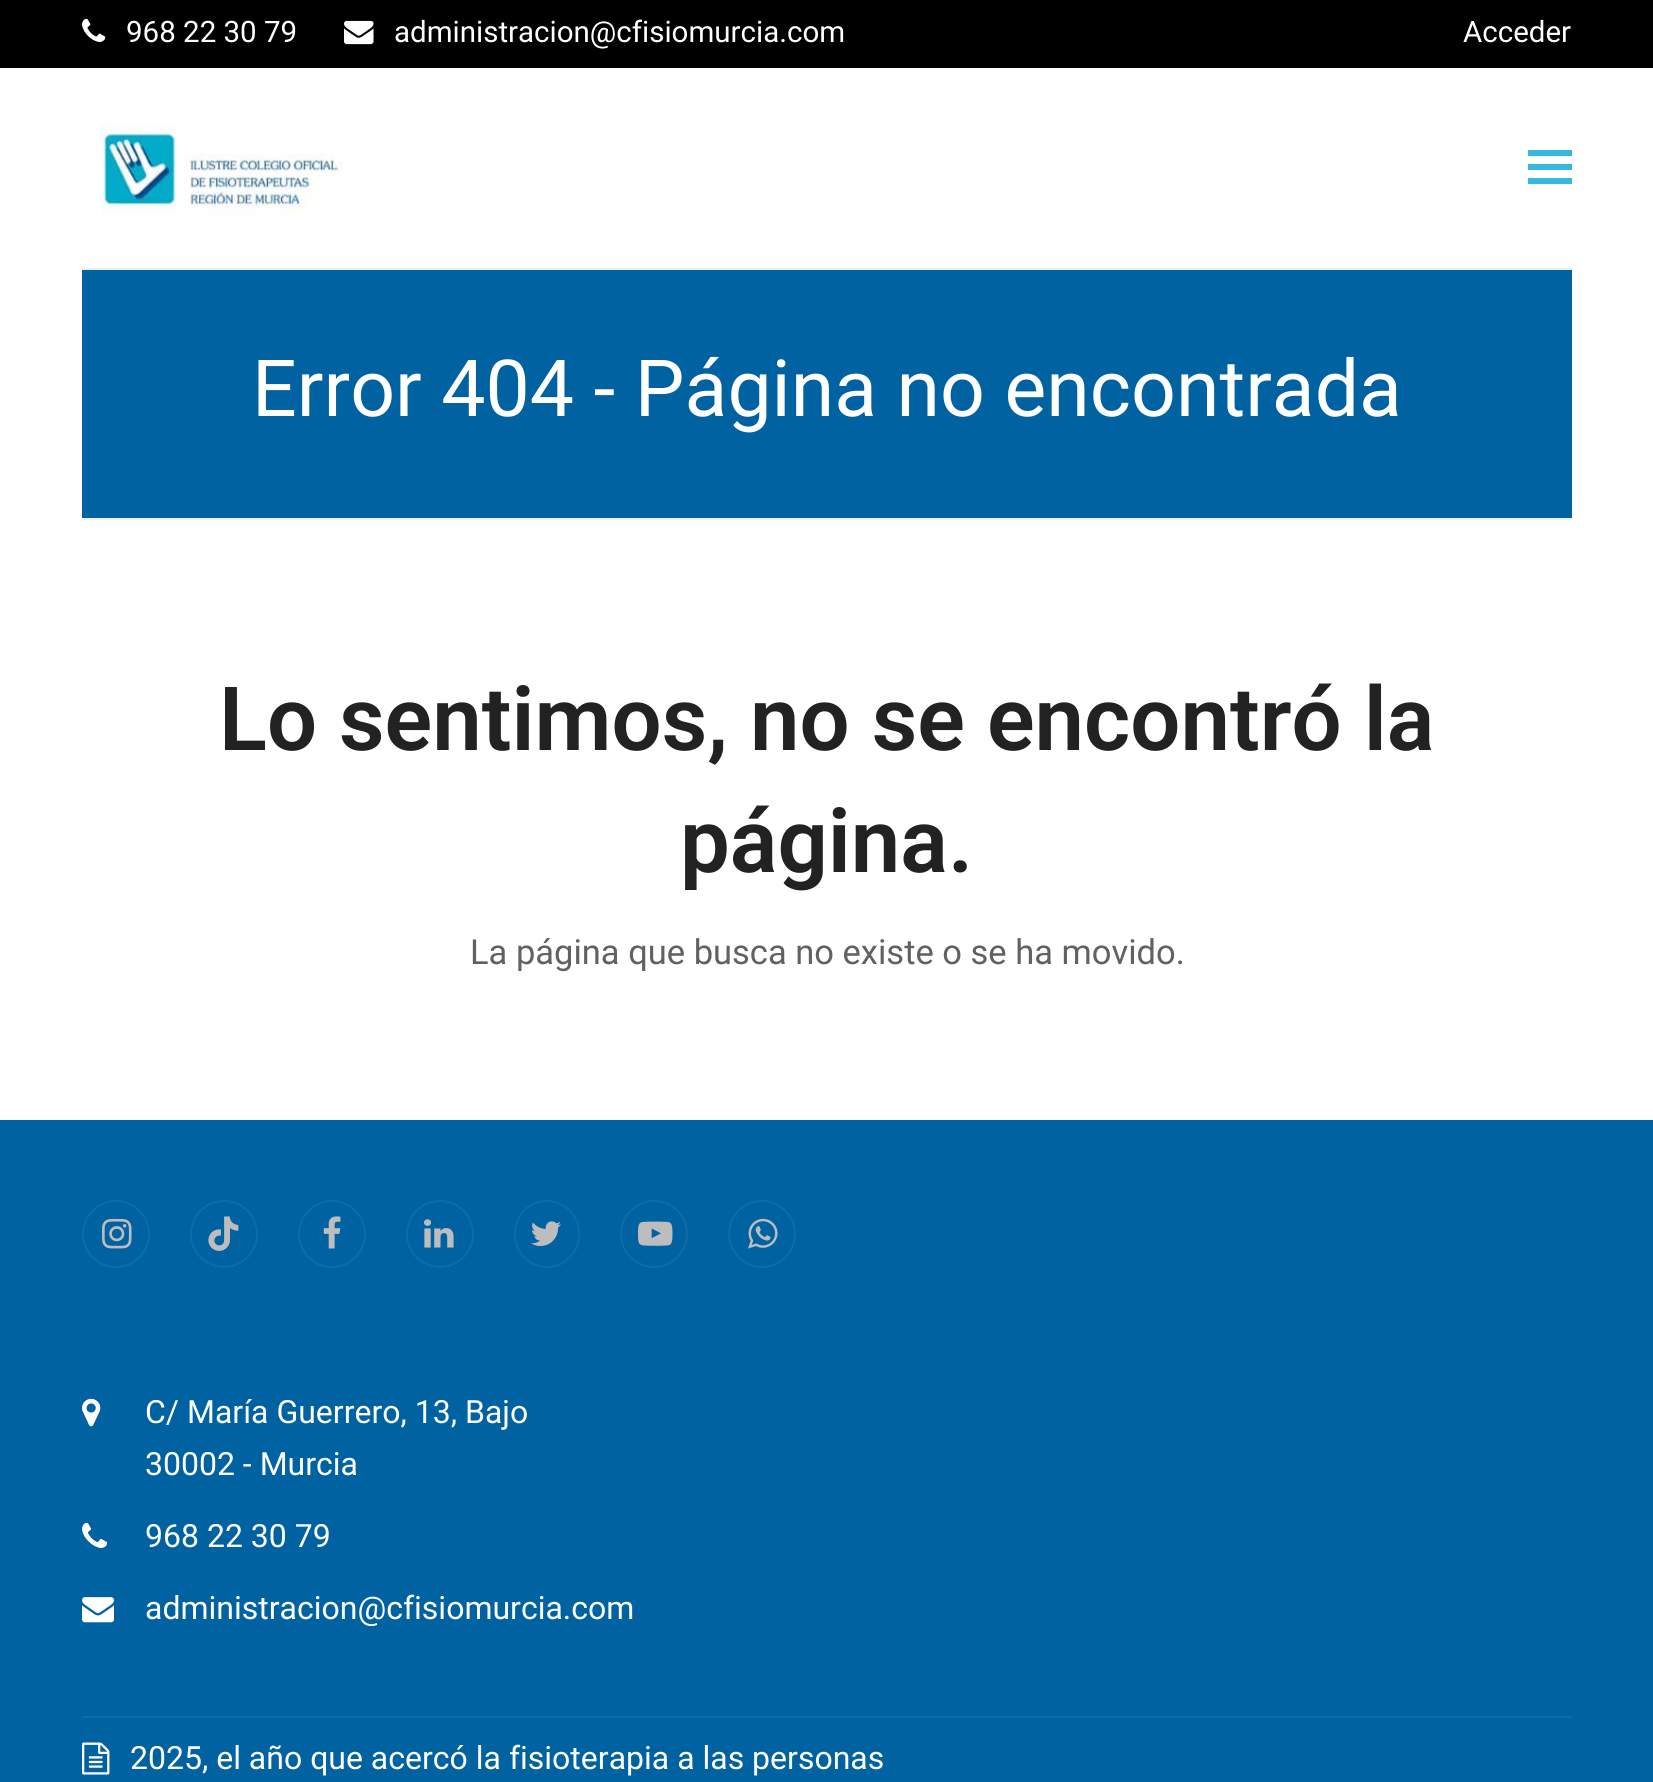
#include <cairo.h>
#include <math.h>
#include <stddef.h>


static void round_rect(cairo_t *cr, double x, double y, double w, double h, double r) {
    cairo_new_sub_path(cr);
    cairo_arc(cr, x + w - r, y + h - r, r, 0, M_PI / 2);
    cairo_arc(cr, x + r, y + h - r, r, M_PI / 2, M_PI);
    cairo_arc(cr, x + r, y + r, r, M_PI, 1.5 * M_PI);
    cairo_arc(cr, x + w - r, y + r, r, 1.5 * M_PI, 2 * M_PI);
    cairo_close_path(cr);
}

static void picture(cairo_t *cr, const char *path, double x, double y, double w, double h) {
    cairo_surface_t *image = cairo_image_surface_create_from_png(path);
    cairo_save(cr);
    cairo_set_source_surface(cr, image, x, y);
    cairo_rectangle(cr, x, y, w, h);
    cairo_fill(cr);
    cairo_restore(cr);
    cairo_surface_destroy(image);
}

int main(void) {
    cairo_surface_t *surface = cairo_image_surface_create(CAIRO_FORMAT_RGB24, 1653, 1782);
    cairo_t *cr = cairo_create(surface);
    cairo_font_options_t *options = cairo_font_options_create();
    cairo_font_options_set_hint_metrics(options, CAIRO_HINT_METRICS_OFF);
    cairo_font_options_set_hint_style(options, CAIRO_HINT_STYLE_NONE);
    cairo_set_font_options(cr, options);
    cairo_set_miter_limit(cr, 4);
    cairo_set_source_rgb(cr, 1, 1, 1);
    cairo_paint(cr);
    cairo_set_source_rgb(cr, 0, 0, 0);
    cairo_rectangle(cr, 0, 0, 1653, 68);
    cairo_fill(cr);
    picture(cr, "img1.png", 82, 18, 24, 24);
    cairo_select_font_face(cr, "Roboto", CAIRO_FONT_SLANT_NORMAL, CAIRO_FONT_WEIGHT_NORMAL);
    cairo_set_font_size(cr, 29.5);
    cairo_set_source_rgb(cr, 1, 1, 1);
    cairo_move_to(cr, 126, 42);
    cairo_show_text(cr, "968 22 30 79");
    picture(cr, "img2.png", 344, 20, 30, 25);
    cairo_move_to(cr, 394, 42);
    cairo_show_text(cr, "administracion@cfisiomurcia.com");
    cairo_move_to(cr, 1463, 42);
    cairo_show_text(cr, "Acceder");
    picture(cr, "img3.png", 100, 124, 243, 91);
    cairo_set_source_rgb(cr, 0.212, 0.722, 0.878);
    cairo_rectangle(cr, 1528, 164, 44, 6);
    cairo_fill(cr);
    cairo_rectangle(cr, 1528, 150, 44, 6);
    cairo_fill(cr);
    cairo_rectangle(cr, 1528, 178, 44, 6);
    cairo_fill(cr);
    cairo_set_source_rgb(cr, 0, 0.384, 0.631);
    cairo_rectangle(cr, 82, 270, 1490, 248);
    cairo_fill(cr);
    cairo_set_source_rgb(cr, 0.933, 0.933, 0.933);
    cairo_rectangle(cr, 82, 268, 1490, 2);
    cairo_fill(cr);
    cairo_rectangle(cr, 82, 518, 1490, 2);
    cairo_fill(cr);
    cairo_set_font_size(cr, 78.75);
    cairo_set_source_rgb(cr, 1, 1, 1);
    cairo_move_to(cr, 252, 416);
    cairo_show_text(cr, "Error 404 - Página no encontrada");
    cairo_select_font_face(cr, "Roboto SemiBold", CAIRO_FONT_SLANT_NORMAL, CAIRO_FONT_WEIGHT_NORMAL);
    cairo_set_font_size(cr, 88.6);
    cairo_set_source_rgb(cr, 0.133, 0.133, 0.133);
    cairo_move_to(cr, 219, 750);
    cairo_show_text(cr, "Lo sentimos, no se encontró la");
    cairo_move_to(cr, 680, 872);
    cairo_show_text(cr, "página.");
    cairo_select_font_face(cr, "Roboto", CAIRO_FONT_SLANT_NORMAL, CAIRO_FONT_WEIGHT_NORMAL);
    cairo_set_font_size(cr, 34.5);
    cairo_set_source_rgb(cr, 0.38, 0.38, 0.38);
    cairo_move_to(cr, 470, 964);
    cairo_show_text(cr, "La página que busca no existe o se ha movido.");
    cairo_set_source_rgb(cr, 0, 0.384, 0.631);
    cairo_rectangle(cr, 0, 1120, 1653, 662);
    cairo_fill(cr);
    cairo_arc(cr, 116, 1234, 33, 0, 2 * M_PI);
    cairo_set_source_rgb(cr, 0.059, 0.42, 0.655);
    cairo_stroke(cr);
    picture(cr, "img4.png", 102, 1218, 30, 31);
    cairo_arc(cr, 224, 1234, 33, 0, 2 * M_PI);
    cairo_stroke(cr);
    picture(cr, "img5.png", 208, 1216, 31, 35);
    cairo_arc(cr, 332, 1234, 33, 0, 2 * M_PI);
    cairo_stroke(cr);
    picture(cr, "img6.png", 323, 1216, 18, 33);
    cairo_arc(cr, 440, 1234, 33, 0, 2 * M_PI);
    cairo_stroke(cr);
    picture(cr, "img7.png", 424, 1219, 30, 29);
    round_rect(cr, 515, 1201, 64, 66, 32);
    cairo_stroke(cr);
    picture(cr, "img8.png", 531, 1221, 30, 25);
    cairo_arc(cr, 654, 1234, 33, 0, 2 * M_PI);
    cairo_stroke(cr);
    picture(cr, "img9.png", 638, 1221, 35, 25);
    cairo_arc(cr, 762, 1234, 33, 0, 2 * M_PI);
    cairo_stroke(cr);
    picture(cr, "img10.png", 748, 1218, 30, 31);
    picture(cr, "img11.png", 82, 1398, 19, 29);
    cairo_set_font_size(cr, 32);
    cairo_set_source_rgb(cr, 1, 1, 1);
    cairo_move_to(cr, 145, 1423);
    cairo_show_text(cr, "C/ María Guerrero, 13, Bajo");
    cairo_move_to(cr, 145, 1475);
    cairo_show_text(cr, "30002 - Murcia");
    picture(cr, "img12.png", 82, 1522, 26, 26);
    cairo_move_to(cr, 145, 1547);
    cairo_show_text(cr, "968 22 30 79");
    picture(cr, "img13.png", 82, 1597, 32, 26);
    cairo_move_to(cr, 145, 1619);
    cairo_show_text(cr, "administracion@cfisiomurcia.com");
    cairo_set_source_rgb(cr, 0.059, 0.42, 0.655);
    cairo_rectangle(cr, 82, 1716, 1490, 2);
    cairo_fill(cr);
    picture(cr, "img14.png", 82, 1742, 28, 33);
    cairo_set_source_rgb(cr, 1, 1, 1);
    cairo_move_to(cr, 130, 1769);
    cairo_show_text(cr, "2025, el año que acercó la fisioterapia a las personas");
    cairo_surface_write_to_png(surface, "page.png");
    cairo_font_options_destroy(options);
    cairo_destroy(cr);
    cairo_surface_destroy(surface);
    return 0;
}
